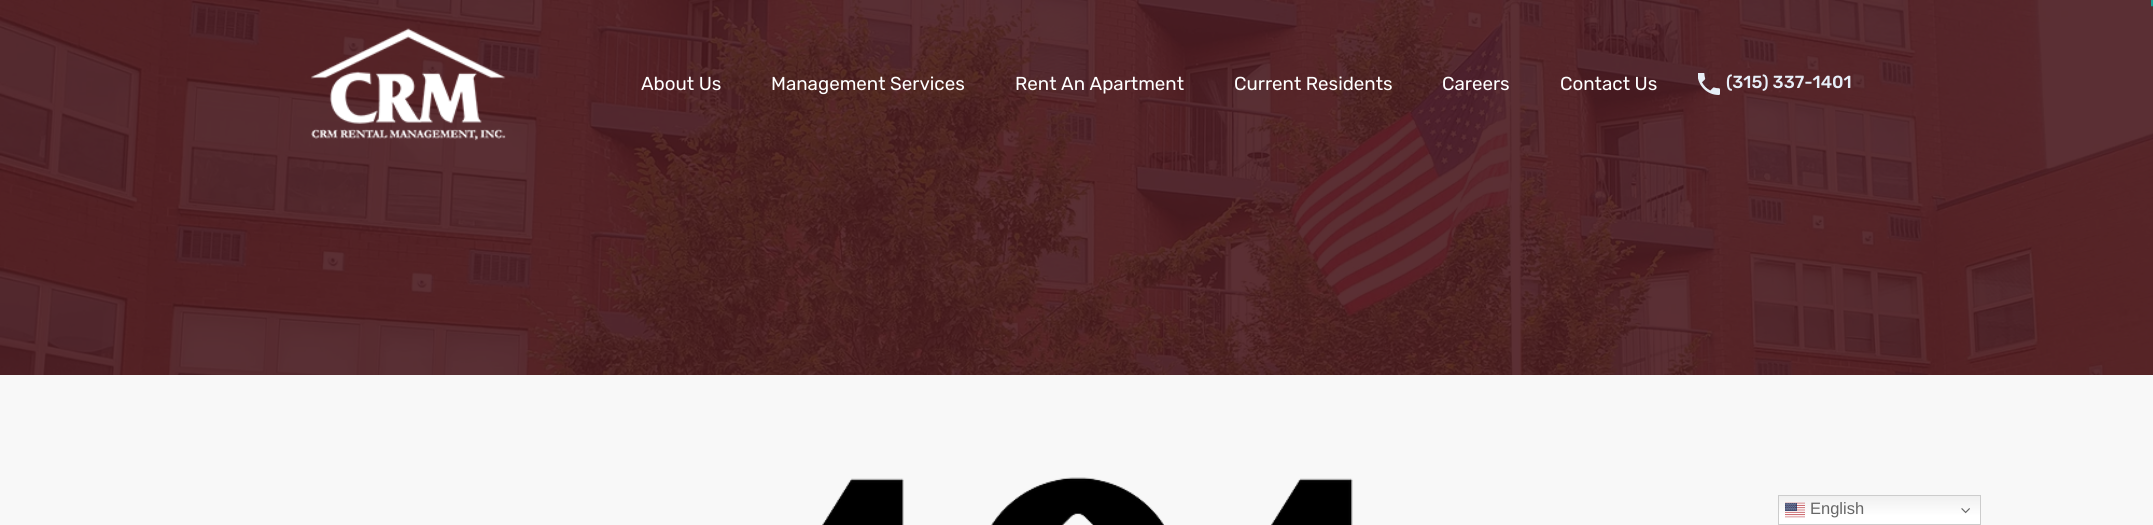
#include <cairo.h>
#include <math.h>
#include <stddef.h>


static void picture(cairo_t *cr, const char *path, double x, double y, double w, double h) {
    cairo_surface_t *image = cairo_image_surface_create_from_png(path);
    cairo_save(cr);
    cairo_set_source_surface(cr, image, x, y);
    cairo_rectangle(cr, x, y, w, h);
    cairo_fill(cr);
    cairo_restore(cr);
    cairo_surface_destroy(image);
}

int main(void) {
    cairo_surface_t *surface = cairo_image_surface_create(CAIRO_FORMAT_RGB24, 2153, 525);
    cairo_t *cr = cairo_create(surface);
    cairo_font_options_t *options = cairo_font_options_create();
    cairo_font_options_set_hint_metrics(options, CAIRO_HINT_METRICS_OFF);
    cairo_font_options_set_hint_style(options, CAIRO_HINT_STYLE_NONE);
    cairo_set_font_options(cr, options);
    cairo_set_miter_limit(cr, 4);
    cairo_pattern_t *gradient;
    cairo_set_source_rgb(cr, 0.969, 0.969, 0.969);
    cairo_paint(cr);
    picture(cr, "img1.png", 0, 0, 2153, 375);
    cairo_new_path(cr);
    cairo_move_to(cr, 2151, 3);
    cairo_line_to(cr, 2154, 3);
    cairo_set_source_rgb(cr, 0.118, 0.651, 0.604);
    cairo_set_line_width(cr, 6.5);
    cairo_stroke(cr);
    picture(cr, "img2.png", 311, 28, 195, 113);
    cairo_select_font_face(cr, "Rubik", CAIRO_FONT_SLANT_NORMAL, CAIRO_FONT_WEIGHT_NORMAL);
    cairo_set_font_size(cr, 18.75);
    cairo_set_source_rgb(cr, 1, 1, 1);
    cairo_move_to(cr, 641, 90);
    cairo_show_text(cr, "About Us");
    cairo_move_to(cr, 771, 90);
    cairo_show_text(cr, "Management Services");
    cairo_move_to(cr, 1015, 90);
    cairo_show_text(cr, "Rent An Apartment");
    cairo_move_to(cr, 1234, 90);
    cairo_show_text(cr, "Current Residents");
    cairo_move_to(cr, 1442, 90);
    cairo_show_text(cr, "Careers");
    cairo_move_to(cr, 1560, 90);
    cairo_show_text(cr, "Contact Us");
    picture(cr, "img3.png", 1698, 73, 22, 22);
    cairo_select_font_face(cr, "Rubik Medium", CAIRO_FONT_SLANT_NORMAL, CAIRO_FONT_WEIGHT_NORMAL);
    cairo_set_font_size(cr, 17.5);
    cairo_set_source_rgb(cr, 0.906, 0.937, 0.969);
    cairo_move_to(cr, 1726, 88);
    cairo_show_text(cr, "(315) 337-1401");
    picture(cr, "img4.png", 822, 477, 531, 48);
    gradient = cairo_pattern_create_linear(1879, 495, 1879, 525);
    cairo_pattern_add_color_stop_rgba(gradient, 0, 0.937, 0.937, 0.937, 1);
    cairo_pattern_add_color_stop_rgba(gradient, 0.7, 1, 1, 1, 1);
    cairo_set_source(cr, gradient);
    cairo_pattern_destroy(gradient);
    cairo_rectangle(cr, 1779, 496, 201, 28);
    cairo_fill(cr);
    cairo_rectangle(cr, 1778.5, 495.5, 202, 29);
    cairo_set_source_rgb(cr, 0.8, 0.8, 0.8);
    cairo_set_line_width(cr, 1);
    cairo_stroke(cr);
    picture(cr, "img5.png", 1785, 502, 20, 16);
    cairo_select_font_face(cr, "Liberation Sans", CAIRO_FONT_SLANT_NORMAL, CAIRO_FONT_WEIGHT_NORMAL);
    cairo_set_font_size(cr, 16.5);
    cairo_set_source_rgb(cr, 0.4, 0.4, 0.4);
    cairo_move_to(cr, 1810, 514);
    cairo_show_text(cr, "English");
    picture(cr, "img6.png", 1961, 508, 9, 6);
    cairo_surface_write_to_png(surface, "page.png");
    cairo_font_options_destroy(options);
    cairo_destroy(cr);
    cairo_surface_destroy(surface);
    return 0;
}
